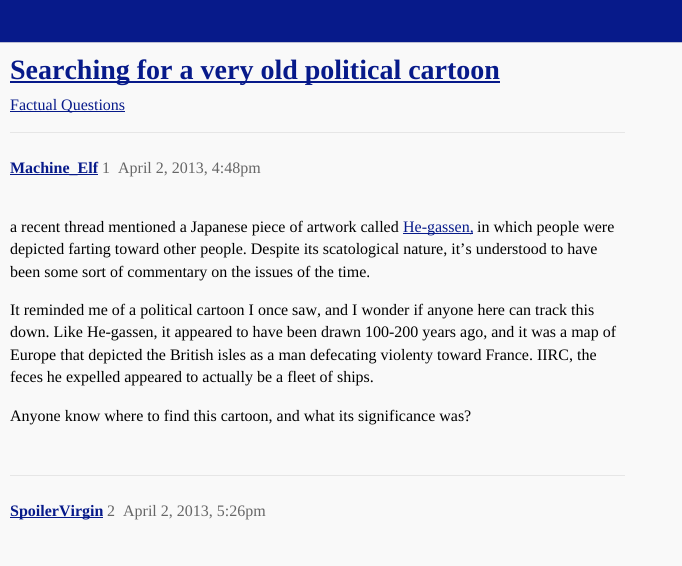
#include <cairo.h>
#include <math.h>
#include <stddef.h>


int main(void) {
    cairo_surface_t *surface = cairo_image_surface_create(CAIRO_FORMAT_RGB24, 682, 566);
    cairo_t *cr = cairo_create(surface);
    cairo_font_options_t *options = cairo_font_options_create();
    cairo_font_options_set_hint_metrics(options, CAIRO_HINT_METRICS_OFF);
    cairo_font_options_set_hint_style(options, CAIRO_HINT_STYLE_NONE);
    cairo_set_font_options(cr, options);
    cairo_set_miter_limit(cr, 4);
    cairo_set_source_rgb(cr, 0.973, 0.973, 0.973);
    cairo_paint(cr);
    cairo_set_source_rgb(cr, 0.031, 0.102, 0.541);
    cairo_rectangle(cr, 0, 0, 682, 42);
    cairo_fill(cr);
    cairo_set_source_rgb(cr, 0.741, 0.745, 0.827);
    cairo_rectangle(cr, 0, 42, 682, 1);
    cairo_fill(cr);
    cairo_set_source_rgb(cr, 0.031, 0.102, 0.541);
    cairo_rectangle(cr, 10, 81, 490, 2);
    cairo_fill(cr);
    cairo_select_font_face(cr, "Liberation Serif", CAIRO_FONT_SLANT_NORMAL, CAIRO_FONT_WEIGHT_BOLD);
    cairo_set_font_size(cr, 28);
    cairo_move_to(cr, 10, 79);
    cairo_show_text(cr, "Searching for a very old political cartoon");
    cairo_rectangle(cr, 10, 111, 115, 1);
    cairo_fill(cr);
    cairo_select_font_face(cr, "Liberation Serif", CAIRO_FONT_SLANT_NORMAL, CAIRO_FONT_WEIGHT_NORMAL);
    cairo_set_font_size(cr, 16);
    cairo_move_to(cr, 10, 110);
    cairo_show_text(cr, "Factual Questions");
    cairo_set_source_rgb(cr, 0.902, 0.902, 0.902);
    cairo_rectangle(cr, 10, 132, 615, 1);
    cairo_fill(cr);
    cairo_set_source_rgb(cr, 0.031, 0.102, 0.541);
    cairo_rectangle(cr, 10, 174, 88, 1);
    cairo_fill(cr);
    cairo_select_font_face(cr, "Liberation Serif", CAIRO_FONT_SLANT_NORMAL, CAIRO_FONT_WEIGHT_BOLD);
    cairo_move_to(cr, 10, 173);
    cairo_show_text(cr, "Machine_Elf");
    cairo_select_font_face(cr, "Liberation Serif", CAIRO_FONT_SLANT_NORMAL, CAIRO_FONT_WEIGHT_NORMAL);
    cairo_set_source_rgb(cr, 0.4, 0.4, 0.4);
    cairo_move_to(cr, 102, 173);
    cairo_show_text(cr, "1");
    cairo_move_to(cr, 118, 173);
    cairo_show_text(cr, "April 2, 2013, 4:48pm");
    cairo_set_source_rgb(cr, 0, 0, 0);
    cairo_move_to(cr, 10, 232);
    cairo_show_text(cr, "a recent thread mentioned a Japanese piece of artwork called");
    cairo_set_source_rgb(cr, 0.031, 0.102, 0.541);
    cairo_rectangle(cr, 403, 233, 70, 1);
    cairo_fill(cr);
    cairo_move_to(cr, 403, 232);
    cairo_show_text(cr, "He-gassen,");
    cairo_set_source_rgb(cr, 0, 0, 0);
    cairo_move_to(cr, 477, 232);
    cairo_show_text(cr, "in which people were");
    cairo_move_to(cr, 10, 254);
    cairo_show_text(cr, "depicted farting toward other people. Despite its scatological nature, it’s understood to have");
    cairo_move_to(cr, 10, 277);
    cairo_show_text(cr, "been some sort of commentary on the issues of the time.");
    cairo_move_to(cr, 10, 315);
    cairo_show_text(cr, "It reminded me of a political cartoon I once saw, and I wonder if anyone here can track this");
    cairo_move_to(cr, 10, 337);
    cairo_show_text(cr, "down. Like He-gassen, it appeared to have been drawn 100-200 years ago, and it was a map of");
    cairo_move_to(cr, 10, 360);
    cairo_show_text(cr, "Europe that depicted the British isles as a man defecating violenty toward France. IIRC, the");
    cairo_move_to(cr, 10, 382);
    cairo_show_text(cr, "feces he expelled appeared to actually be a fleet of ships.");
    cairo_move_to(cr, 10, 421);
    cairo_show_text(cr, "Anyone know where to find this cartoon, and what its significance was?");
    cairo_set_source_rgb(cr, 0.902, 0.902, 0.902);
    cairo_rectangle(cr, 10, 475, 615, 1);
    cairo_fill(cr);
    cairo_set_source_rgb(cr, 0.031, 0.102, 0.541);
    cairo_rectangle(cr, 10, 517, 93, 1);
    cairo_fill(cr);
    cairo_select_font_face(cr, "Liberation Serif", CAIRO_FONT_SLANT_NORMAL, CAIRO_FONT_WEIGHT_BOLD);
    cairo_move_to(cr, 10, 516);
    cairo_show_text(cr, "SpoilerVirgin");
    cairo_select_font_face(cr, "Liberation Serif", CAIRO_FONT_SLANT_NORMAL, CAIRO_FONT_WEIGHT_NORMAL);
    cairo_set_source_rgb(cr, 0.4, 0.4, 0.4);
    cairo_move_to(cr, 107, 516);
    cairo_show_text(cr, "2");
    cairo_move_to(cr, 123, 516);
    cairo_show_text(cr, "April 2, 2013, 5:26pm");
    cairo_surface_write_to_png(surface, "page.png");
    cairo_font_options_destroy(options);
    cairo_destroy(cr);
    cairo_surface_destroy(surface);
    return 0;
}
